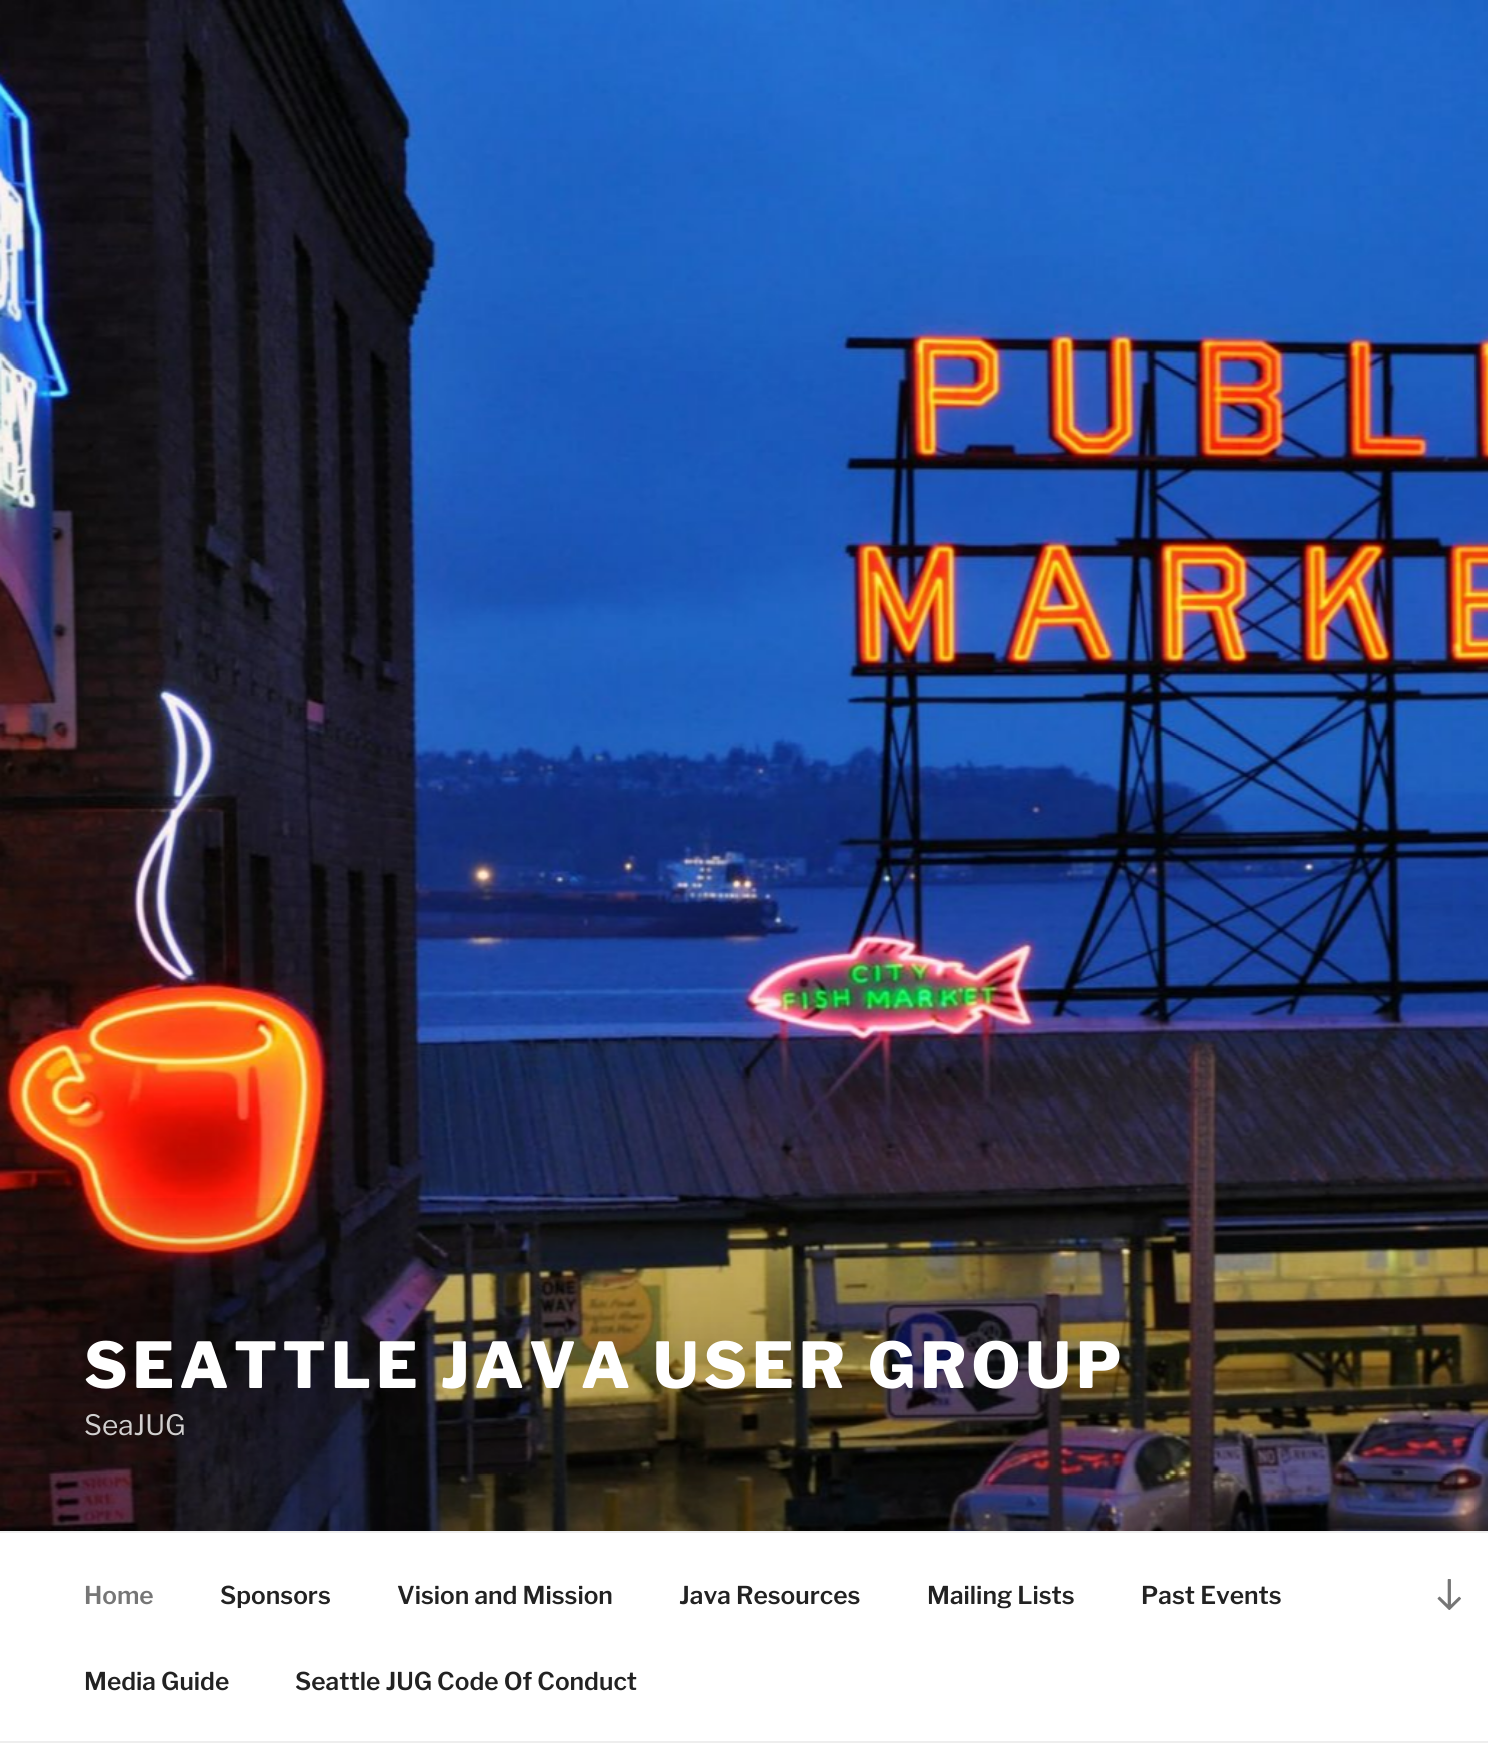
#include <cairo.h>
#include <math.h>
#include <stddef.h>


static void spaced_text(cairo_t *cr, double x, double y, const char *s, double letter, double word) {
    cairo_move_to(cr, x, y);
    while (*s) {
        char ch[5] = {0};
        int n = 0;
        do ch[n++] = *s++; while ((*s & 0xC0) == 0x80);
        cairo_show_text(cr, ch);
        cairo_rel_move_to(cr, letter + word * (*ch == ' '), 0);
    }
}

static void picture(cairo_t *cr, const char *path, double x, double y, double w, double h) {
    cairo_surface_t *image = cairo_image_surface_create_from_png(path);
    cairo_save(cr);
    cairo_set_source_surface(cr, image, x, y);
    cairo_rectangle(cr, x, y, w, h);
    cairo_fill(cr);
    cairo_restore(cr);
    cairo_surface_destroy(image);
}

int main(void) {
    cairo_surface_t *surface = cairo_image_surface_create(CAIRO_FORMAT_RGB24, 1488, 1743);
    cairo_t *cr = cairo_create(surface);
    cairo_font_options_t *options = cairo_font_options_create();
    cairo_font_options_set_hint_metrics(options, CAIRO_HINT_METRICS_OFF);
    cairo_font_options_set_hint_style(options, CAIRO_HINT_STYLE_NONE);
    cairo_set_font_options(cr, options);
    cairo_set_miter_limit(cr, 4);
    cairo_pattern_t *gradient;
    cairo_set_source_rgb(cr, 1, 1, 1);
    cairo_paint(cr);
    picture(cr, "img1.png", 0, 0, 1488, 1531);
    gradient = cairo_pattern_create_linear(745, 1167, 745, 1743);
    cairo_pattern_add_color_stop_rgba(gradient, 0, 0, 0, 0, 0);
    cairo_pattern_add_color_stop_rgba(gradient, 0.75, 0, 0, 0, 0.3);
    cairo_pattern_add_color_stop_rgba(gradient, 1, 0, 0, 0, 0.3);
    cairo_set_source(cr, gradient);
    cairo_pattern_destroy(gradient);
    cairo_rectangle(cr, 0, 1198, 1488, 333);
    cairo_fill(cr);
    cairo_select_font_face(cr, "Libre Franklin Thin", CAIRO_FONT_SLANT_NORMAL, CAIRO_FONT_WEIGHT_NORMAL);
    cairo_set_font_size(cr, 63);
    cairo_set_source_rgb(cr, 1, 1, 1);
    spaced_text(cr, 84, 1388, "SEATTLE JAVA USER GROUP", 5, 0);
    cairo_select_font_face(cr, "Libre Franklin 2 Thin", CAIRO_FONT_SLANT_NORMAL, CAIRO_FONT_WEIGHT_NORMAL);
    cairo_set_font_size(cr, 28);
    cairo_set_source_rgb(cr, 0.82, 0.812, 0.812);
    cairo_move_to(cr, 84, 1435);
    cairo_show_text(cr, "SeaJUG");
    cairo_set_source_rgb(cr, 0.933, 0.933, 0.933);
    cairo_rectangle(cr, 0, 1531, 1488, 2);
    cairo_fill(cr);
    cairo_rectangle(cr, 0, 1741, 1488, 2);
    cairo_fill(cr);
    cairo_select_font_face(cr, "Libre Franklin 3 Thin", CAIRO_FONT_SLANT_NORMAL, CAIRO_FONT_WEIGHT_NORMAL);
    cairo_set_font_size(cr, 24.5);
    cairo_set_source_rgb(cr, 0.463, 0.463, 0.463);
    cairo_move_to(cr, 84, 1604);
    cairo_show_text(cr, "Home");
    cairo_set_source_rgb(cr, 0.133, 0.133, 0.133);
    cairo_move_to(cr, 220, 1604);
    cairo_show_text(cr, "Sponsors");
    cairo_move_to(cr, 397, 1604);
    cairo_show_text(cr, "Vision and Mission");
    cairo_move_to(cr, 679, 1604);
    cairo_show_text(cr, "Java Resources");
    cairo_move_to(cr, 927, 1604);
    cairo_show_text(cr, "Mailing Lists");
    cairo_move_to(cr, 1141, 1604);
    cairo_show_text(cr, "Past Events");
    cairo_move_to(cr, 84, 1690);
    cairo_show_text(cr, "Media Guide");
    cairo_move_to(cr, 295, 1690);
    cairo_show_text(cr, "Seattle JUG Code Of Conduct");
    picture(cr, "img2.png", 1437, 1579, 24, 31);
    cairo_surface_write_to_png(surface, "page.png");
    cairo_font_options_destroy(options);
    cairo_destroy(cr);
    cairo_surface_destroy(surface);
    return 0;
}
